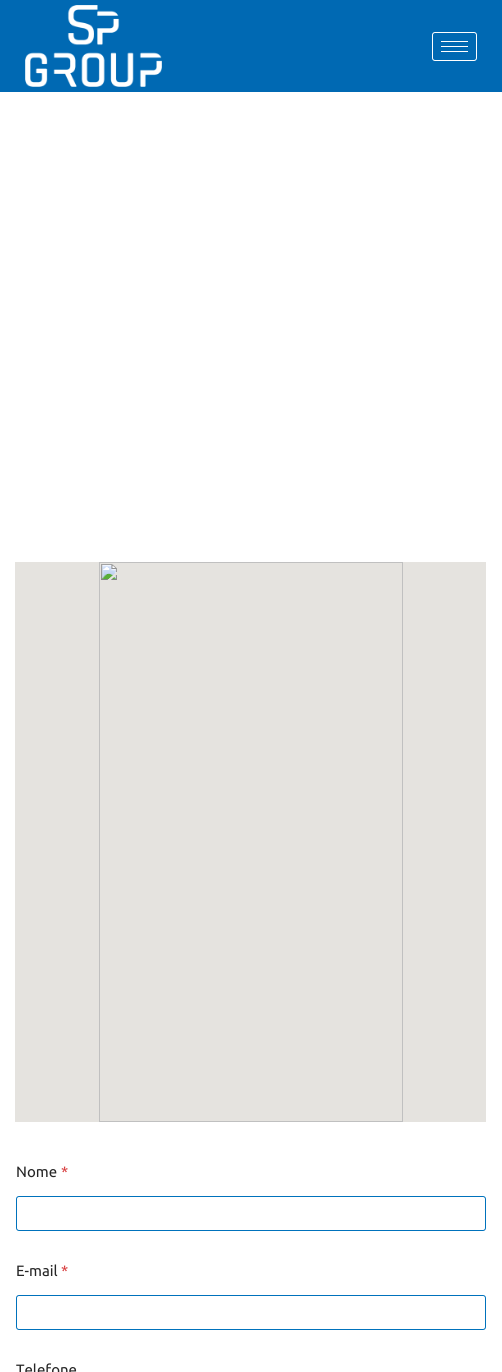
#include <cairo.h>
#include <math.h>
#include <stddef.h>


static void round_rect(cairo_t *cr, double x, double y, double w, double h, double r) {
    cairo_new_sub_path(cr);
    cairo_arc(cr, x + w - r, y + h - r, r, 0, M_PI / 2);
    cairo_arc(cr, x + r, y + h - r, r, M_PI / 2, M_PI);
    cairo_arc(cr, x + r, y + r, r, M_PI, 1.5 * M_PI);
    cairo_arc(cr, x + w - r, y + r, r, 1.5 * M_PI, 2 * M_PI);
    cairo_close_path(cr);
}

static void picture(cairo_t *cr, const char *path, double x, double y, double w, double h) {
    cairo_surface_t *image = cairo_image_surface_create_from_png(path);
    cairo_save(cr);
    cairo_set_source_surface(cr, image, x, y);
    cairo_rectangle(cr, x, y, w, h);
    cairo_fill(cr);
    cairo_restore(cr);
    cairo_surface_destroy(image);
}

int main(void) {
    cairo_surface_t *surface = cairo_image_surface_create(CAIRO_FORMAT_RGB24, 502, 1372);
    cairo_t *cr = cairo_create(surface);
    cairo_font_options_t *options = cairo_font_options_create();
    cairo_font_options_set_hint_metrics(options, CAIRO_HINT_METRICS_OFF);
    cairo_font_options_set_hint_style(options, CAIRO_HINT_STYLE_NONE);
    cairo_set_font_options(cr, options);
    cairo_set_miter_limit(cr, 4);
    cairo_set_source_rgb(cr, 1, 1, 1);
    cairo_paint(cr);
    cairo_set_source_rgb(cr, 0, 0.412, 0.702);
    cairo_rectangle(cr, 0, 0, 502, 92);
    cairo_fill(cr);
    picture(cr, "img1.png", 25, 5, 137, 82);
    round_rect(cr, 432.5, 32.5, 44, 28, 2.5);
    cairo_set_source_rgb(cr, 1, 1, 1);
    cairo_set_line_width(cr, 1);
    cairo_stroke(cr);
    cairo_rectangle(cr, 441, 41, 27, 1);
    cairo_fill(cr);
    cairo_rectangle(cr, 441, 46, 27, 1);
    cairo_fill(cr);
    cairo_rectangle(cr, 441, 51, 27, 1);
    cairo_fill(cr);
    picture(cr, "img2.png", 15, 562, 471, 560);
    cairo_select_font_face(cr, "Ubuntu", CAIRO_FONT_SLANT_NORMAL, CAIRO_FONT_WEIGHT_NORMAL);
    cairo_set_font_size(cr, 15);
    cairo_set_source_rgb(cr, 0.149, 0.149, 0.149);
    cairo_move_to(cr, 16, 1177);
    cairo_show_text(cr, "Nome");
    cairo_set_source_rgb(cr, 0.839, 0.212, 0.216);
    cairo_move_to(cr, 61, 1177);
    cairo_show_text(cr, "*");
    round_rect(cr, 16.5, 1196.5, 469, 34, 2.5);
    cairo_set_source_rgb(cr, 0, 0.447, 0.737);
    cairo_stroke(cr);
    cairo_set_source_rgb(cr, 0.149, 0.149, 0.149);
    cairo_move_to(cr, 16, 1276);
    cairo_show_text(cr, "E-mail");
    cairo_set_source_rgb(cr, 0.839, 0.212, 0.216);
    cairo_move_to(cr, 61, 1276);
    cairo_show_text(cr, "*");
    round_rect(cr, 16.5, 1295.5, 469, 34, 2.5);
    cairo_set_source_rgb(cr, 0, 0.447, 0.737);
    cairo_stroke(cr);
    cairo_set_source_rgb(cr, 0.149, 0.149, 0.149);
    cairo_move_to(cr, 16, 1375);
    cairo_show_text(cr, "Telefone");
    cairo_surface_write_to_png(surface, "page.png");
    cairo_font_options_destroy(options);
    cairo_destroy(cr);
    cairo_surface_destroy(surface);
    return 0;
}
